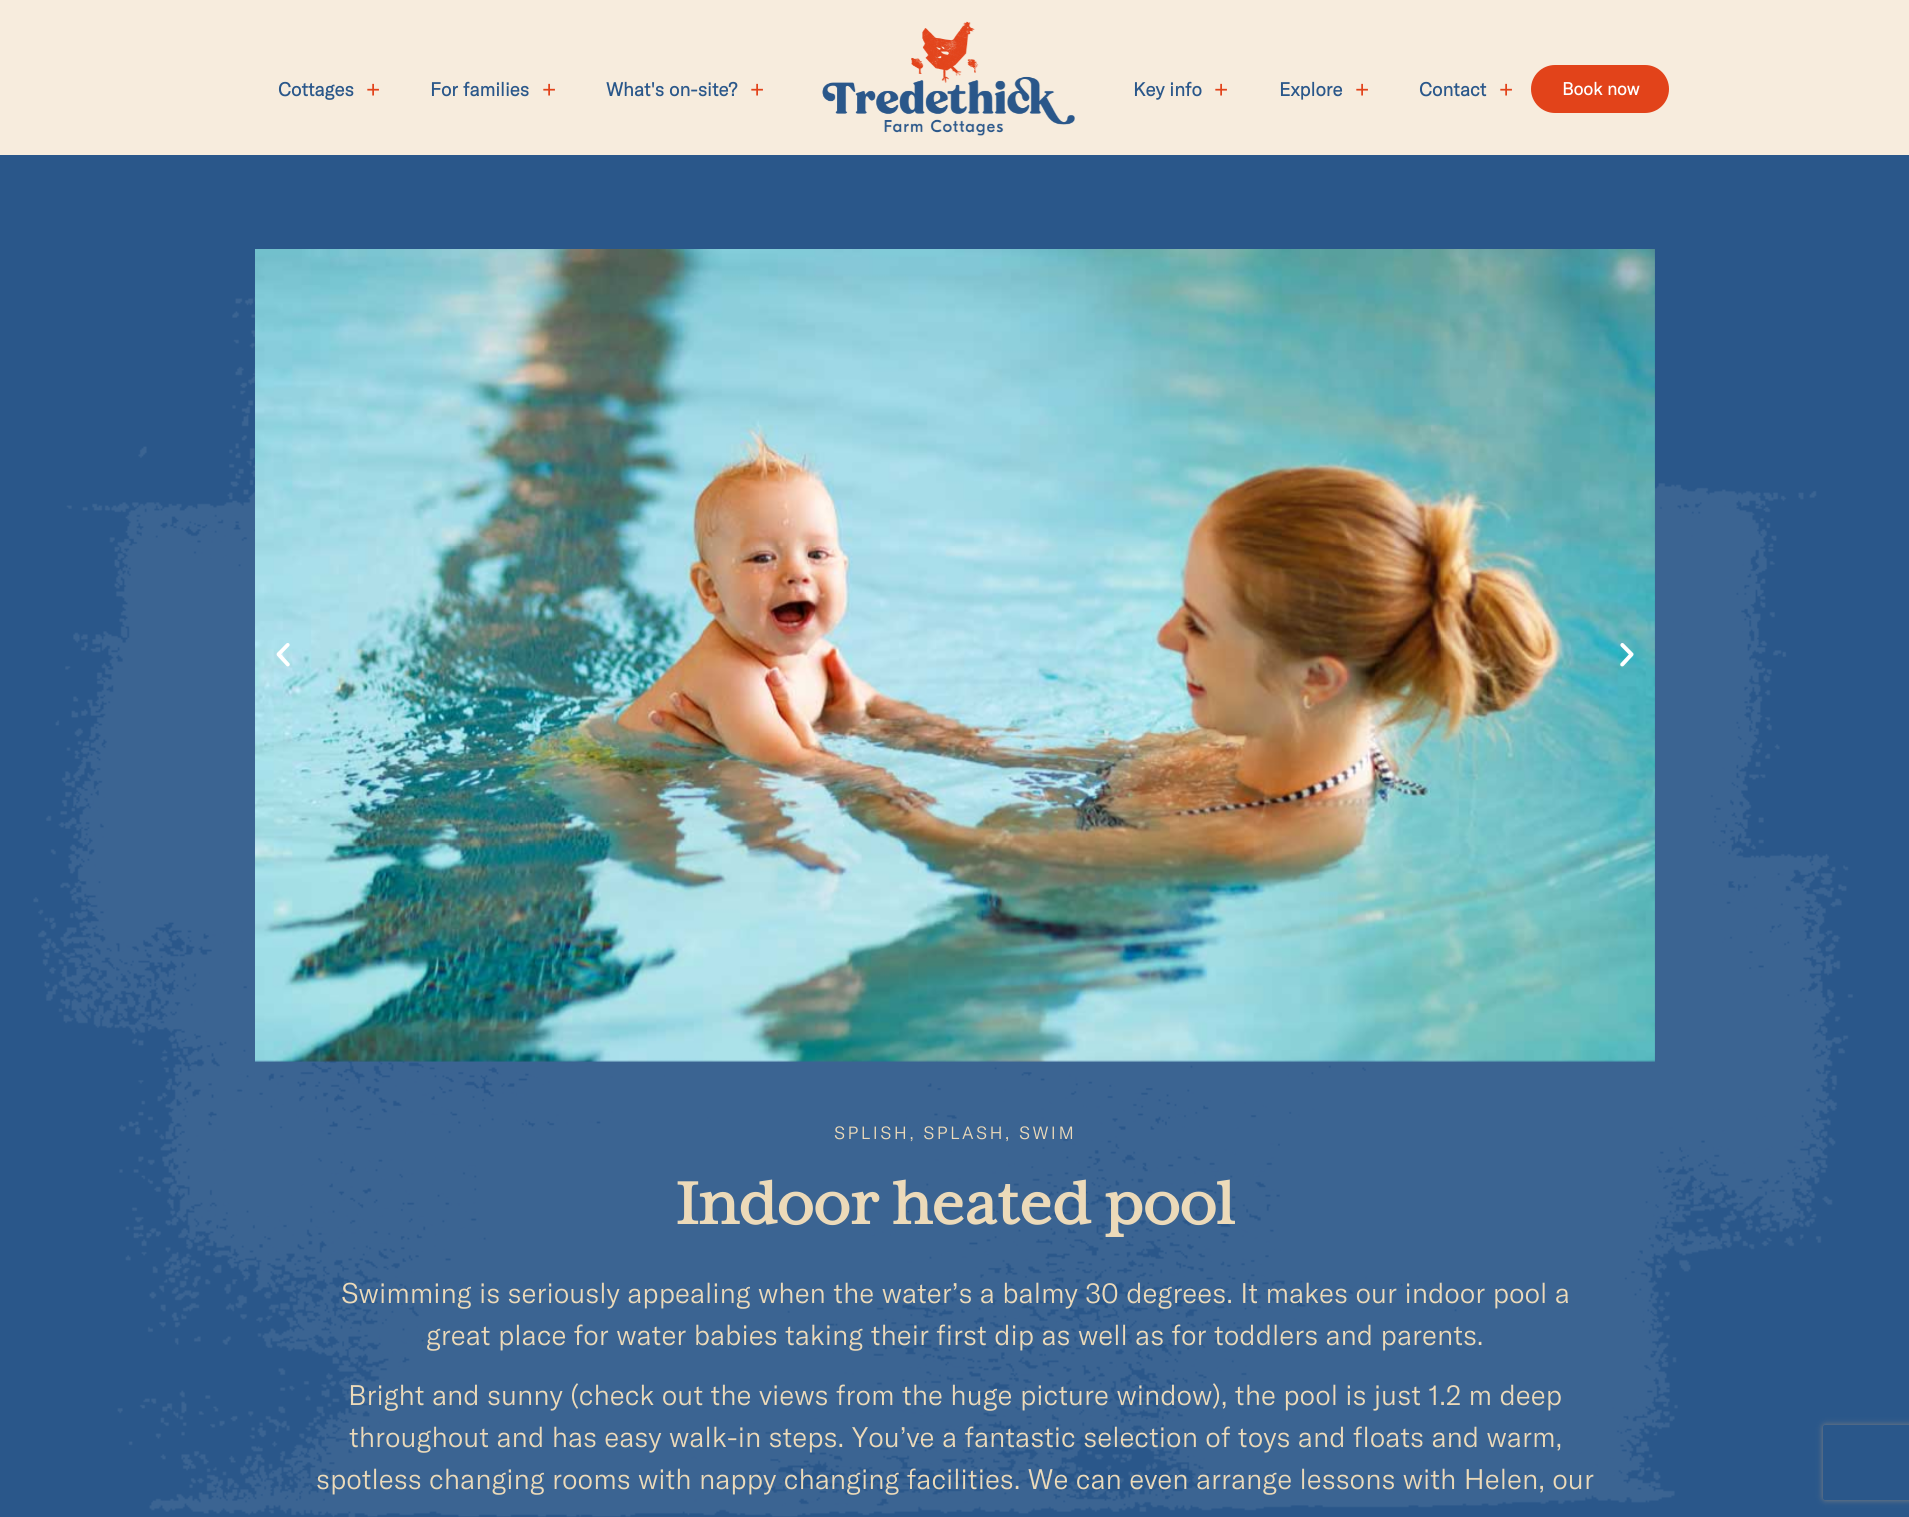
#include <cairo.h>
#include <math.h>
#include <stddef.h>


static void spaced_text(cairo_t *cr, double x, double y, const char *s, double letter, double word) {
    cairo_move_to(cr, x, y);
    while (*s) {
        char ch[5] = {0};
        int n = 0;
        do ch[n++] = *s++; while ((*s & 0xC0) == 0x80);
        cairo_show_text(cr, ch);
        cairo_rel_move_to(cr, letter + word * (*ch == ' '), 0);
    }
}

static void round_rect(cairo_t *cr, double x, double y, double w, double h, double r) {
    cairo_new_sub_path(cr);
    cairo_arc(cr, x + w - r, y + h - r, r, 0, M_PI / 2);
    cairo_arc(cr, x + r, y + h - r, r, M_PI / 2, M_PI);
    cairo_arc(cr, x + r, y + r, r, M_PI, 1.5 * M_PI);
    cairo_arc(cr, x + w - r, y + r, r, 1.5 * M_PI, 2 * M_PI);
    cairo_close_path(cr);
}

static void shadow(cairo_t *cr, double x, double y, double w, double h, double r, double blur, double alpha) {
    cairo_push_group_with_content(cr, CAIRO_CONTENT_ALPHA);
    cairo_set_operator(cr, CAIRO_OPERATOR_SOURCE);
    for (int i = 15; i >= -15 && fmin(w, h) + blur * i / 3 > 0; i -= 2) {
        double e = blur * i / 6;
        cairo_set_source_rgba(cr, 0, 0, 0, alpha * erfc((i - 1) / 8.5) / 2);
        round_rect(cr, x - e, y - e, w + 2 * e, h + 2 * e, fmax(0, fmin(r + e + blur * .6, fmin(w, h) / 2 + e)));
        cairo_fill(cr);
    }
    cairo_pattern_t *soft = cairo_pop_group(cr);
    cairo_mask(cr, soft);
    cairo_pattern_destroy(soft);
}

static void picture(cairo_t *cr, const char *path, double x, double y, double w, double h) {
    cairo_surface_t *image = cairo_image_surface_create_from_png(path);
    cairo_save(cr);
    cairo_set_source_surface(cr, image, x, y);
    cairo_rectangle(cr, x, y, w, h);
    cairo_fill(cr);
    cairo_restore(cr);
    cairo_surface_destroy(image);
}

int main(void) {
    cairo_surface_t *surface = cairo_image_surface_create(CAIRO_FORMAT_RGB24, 1909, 1517);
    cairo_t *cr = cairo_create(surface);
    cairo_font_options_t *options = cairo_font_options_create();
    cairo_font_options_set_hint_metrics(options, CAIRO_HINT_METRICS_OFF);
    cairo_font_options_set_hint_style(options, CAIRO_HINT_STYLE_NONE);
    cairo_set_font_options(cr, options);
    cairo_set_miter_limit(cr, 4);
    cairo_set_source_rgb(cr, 0.165, 0.341, 0.541);
    cairo_paint(cr);
    cairo_set_source_rgb(cr, 0.965, 0.925, 0.867);
    cairo_rectangle(cr, 0, 0, 1909, 155);
    cairo_fill(cr);
    cairo_select_font_face(cr, "GT America", CAIRO_FONT_SLANT_NORMAL, CAIRO_FONT_WEIGHT_BOLD);
    cairo_set_font_size(cr, 18.75);
    cairo_set_source_rgb(cr, 0.165, 0.341, 0.541);
    cairo_move_to(cr, 278, 96);
    cairo_show_text(cr, "Cottages");
    cairo_select_font_face(cr, "Liberation Serif", CAIRO_FONT_SLANT_NORMAL, CAIRO_FONT_WEIGHT_BOLD);
    cairo_set_font_size(cr, 25);
    cairo_set_source_rgb(cr, 0.886, 0.263, 0.102);
    cairo_move_to(cr, 366, 98);
    cairo_show_text(cr, "+");
    cairo_select_font_face(cr, "GT America", CAIRO_FONT_SLANT_NORMAL, CAIRO_FONT_WEIGHT_BOLD);
    cairo_set_font_size(cr, 18.75);
    cairo_set_source_rgb(cr, 0.165, 0.341, 0.541);
    cairo_move_to(cr, 430, 96);
    cairo_show_text(cr, "For families");
    cairo_select_font_face(cr, "Liberation Serif", CAIRO_FONT_SLANT_NORMAL, CAIRO_FONT_WEIGHT_BOLD);
    cairo_set_font_size(cr, 25);
    cairo_set_source_rgb(cr, 0.886, 0.263, 0.102);
    cairo_move_to(cr, 542, 98);
    cairo_show_text(cr, "+");
    cairo_select_font_face(cr, "GT America", CAIRO_FONT_SLANT_NORMAL, CAIRO_FONT_WEIGHT_BOLD);
    cairo_set_font_size(cr, 18.75);
    cairo_set_source_rgb(cr, 0.165, 0.341, 0.541);
    cairo_move_to(cr, 606, 96);
    cairo_show_text(cr, "What's on-site?");
    cairo_select_font_face(cr, "Liberation Serif", CAIRO_FONT_SLANT_NORMAL, CAIRO_FONT_WEIGHT_BOLD);
    cairo_set_font_size(cr, 25);
    cairo_set_source_rgb(cr, 0.886, 0.263, 0.102);
    cairo_move_to(cr, 750, 98);
    cairo_show_text(cr, "+");
    picture(cr, "img1.png", 822, 21, 253, 115);
    cairo_select_font_face(cr, "GT America", CAIRO_FONT_SLANT_NORMAL, CAIRO_FONT_WEIGHT_BOLD);
    cairo_set_font_size(cr, 18.75);
    cairo_set_source_rgb(cr, 0.165, 0.341, 0.541);
    cairo_move_to(cr, 1133, 96);
    cairo_show_text(cr, "Key info");
    cairo_select_font_face(cr, "Liberation Serif", CAIRO_FONT_SLANT_NORMAL, CAIRO_FONT_WEIGHT_BOLD);
    cairo_set_font_size(cr, 25);
    cairo_set_source_rgb(cr, 0.886, 0.263, 0.102);
    cairo_move_to(cr, 1214, 98);
    cairo_show_text(cr, "+");
    cairo_select_font_face(cr, "GT America", CAIRO_FONT_SLANT_NORMAL, CAIRO_FONT_WEIGHT_BOLD);
    cairo_set_font_size(cr, 18.75);
    cairo_set_source_rgb(cr, 0.165, 0.341, 0.541);
    cairo_move_to(cr, 1279, 96);
    cairo_show_text(cr, "Explore");
    cairo_select_font_face(cr, "Liberation Serif", CAIRO_FONT_SLANT_NORMAL, CAIRO_FONT_WEIGHT_BOLD);
    cairo_set_font_size(cr, 25);
    cairo_set_source_rgb(cr, 0.886, 0.263, 0.102);
    cairo_move_to(cr, 1355, 98);
    cairo_show_text(cr, "+");
    cairo_select_font_face(cr, "GT America", CAIRO_FONT_SLANT_NORMAL, CAIRO_FONT_WEIGHT_BOLD);
    cairo_set_font_size(cr, 18.75);
    cairo_set_source_rgb(cr, 0.165, 0.341, 0.541);
    cairo_move_to(cr, 1419, 96);
    cairo_show_text(cr, "Contact");
    cairo_select_font_face(cr, "Liberation Serif", CAIRO_FONT_SLANT_NORMAL, CAIRO_FONT_WEIGHT_BOLD);
    cairo_set_font_size(cr, 25);
    cairo_set_source_rgb(cr, 0.886, 0.263, 0.102);
    cairo_move_to(cr, 1499, 98);
    cairo_show_text(cr, "+");
    round_rect(cr, 1531, 65, 138, 48, 24);
    cairo_fill(cr);
    cairo_select_font_face(cr, "GT America", CAIRO_FONT_SLANT_NORMAL, CAIRO_FONT_WEIGHT_BOLD);
    cairo_set_font_size(cr, 17.5);
    cairo_set_source_rgb(cr, 1, 1, 1);
    cairo_move_to(cr, 1562, 95);
    cairo_show_text(cr, "Book now");
    picture(cr, "img2.png", 33, 297, 1820, 1220);
    picture(cr, "img3.png", 255, 249, 1400, 813);
    picture(cr, "img4.png", 276, 643, 14, 24);
    picture(cr, "img5.png", 1620, 643, 14, 24);
    cairo_select_font_face(cr, "GT America Light", CAIRO_FONT_SLANT_NORMAL, CAIRO_FONT_WEIGHT_NORMAL);
    cairo_set_source_rgb(cr, 0.922, 0.855, 0.725);
    spaced_text(cr, 834, 1139, "SPLISH, SPLASH, SWIM", 2.5, 0);
    cairo_select_font_face(cr, "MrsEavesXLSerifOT", CAIRO_FONT_SLANT_NORMAL, CAIRO_FONT_WEIGHT_BOLD);
    cairo_set_font_size(cr, 68);
    cairo_move_to(cr, 676, 1224);
    cairo_show_text(cr, "Indoor heated pool");
    cairo_select_font_face(cr, "GT America Light", CAIRO_FONT_SLANT_NORMAL, CAIRO_FONT_WEIGHT_NORMAL);
    cairo_set_font_size(cr, 28);
    cairo_move_to(cr, 341, 1303);
    cairo_show_text(cr, "Swimming is seriously appealing when the water’s a balmy 30 degrees. It makes our indoor pool a");
    cairo_move_to(cr, 426, 1345);
    cairo_show_text(cr, "great place for water babies taking their first dip as well as for toddlers and parents.");
    cairo_move_to(cr, 348, 1405);
    cairo_show_text(cr, "Bright and sunny (check out the views from the huge picture window), the pool is just 1.2 m deep");
    cairo_move_to(cr, 349, 1447);
    cairo_show_text(cr, "throughout and has easy walk-in steps. You’ve a fantastic selection of toys and floats and warm,");
    cairo_move_to(cr, 316, 1489);
    cairo_show_text(cr, "spotless changing rooms with nappy changing facilities. We can even arrange lessons with Helen, our");
    cairo_save(cr);
    cairo_set_fill_rule(cr, CAIRO_FILL_RULE_EVEN_ODD);
    cairo_new_path(cr);
    cairo_move_to(cr, 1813, 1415);
    cairo_line_to(cr, 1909, 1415);
    cairo_line_to(cr, 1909, 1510);
    cairo_line_to(cr, 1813, 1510);
    cairo_close_path(cr);
    cairo_move_to(cr, 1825.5, 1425);
    cairo_line_to(cr, 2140.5, 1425);
    cairo_curve_to(cr, 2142, 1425, 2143, 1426, 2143, 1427.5);
    cairo_line_to(cr, 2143, 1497.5);
    cairo_curve_to(cr, 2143, 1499, 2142, 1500, 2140.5, 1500);
    cairo_line_to(cr, 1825.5, 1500);
    cairo_curve_to(cr, 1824, 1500, 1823, 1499, 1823, 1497.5);
    cairo_line_to(cr, 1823, 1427.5);
    cairo_curve_to(cr, 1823, 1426, 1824, 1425, 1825.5, 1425);
    cairo_close_path(cr);
    cairo_clip(cr);
    cairo_set_source_rgb(cr, 0.502, 0.502, 0.502);
    shadow(cr, 1823, 1425, 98, 75, 2.5, 3, 1);
    cairo_restore(cr);
    cairo_surface_write_to_png(surface, "page.png");
    cairo_font_options_destroy(options);
    cairo_destroy(cr);
    cairo_surface_destroy(surface);
    return 0;
}
